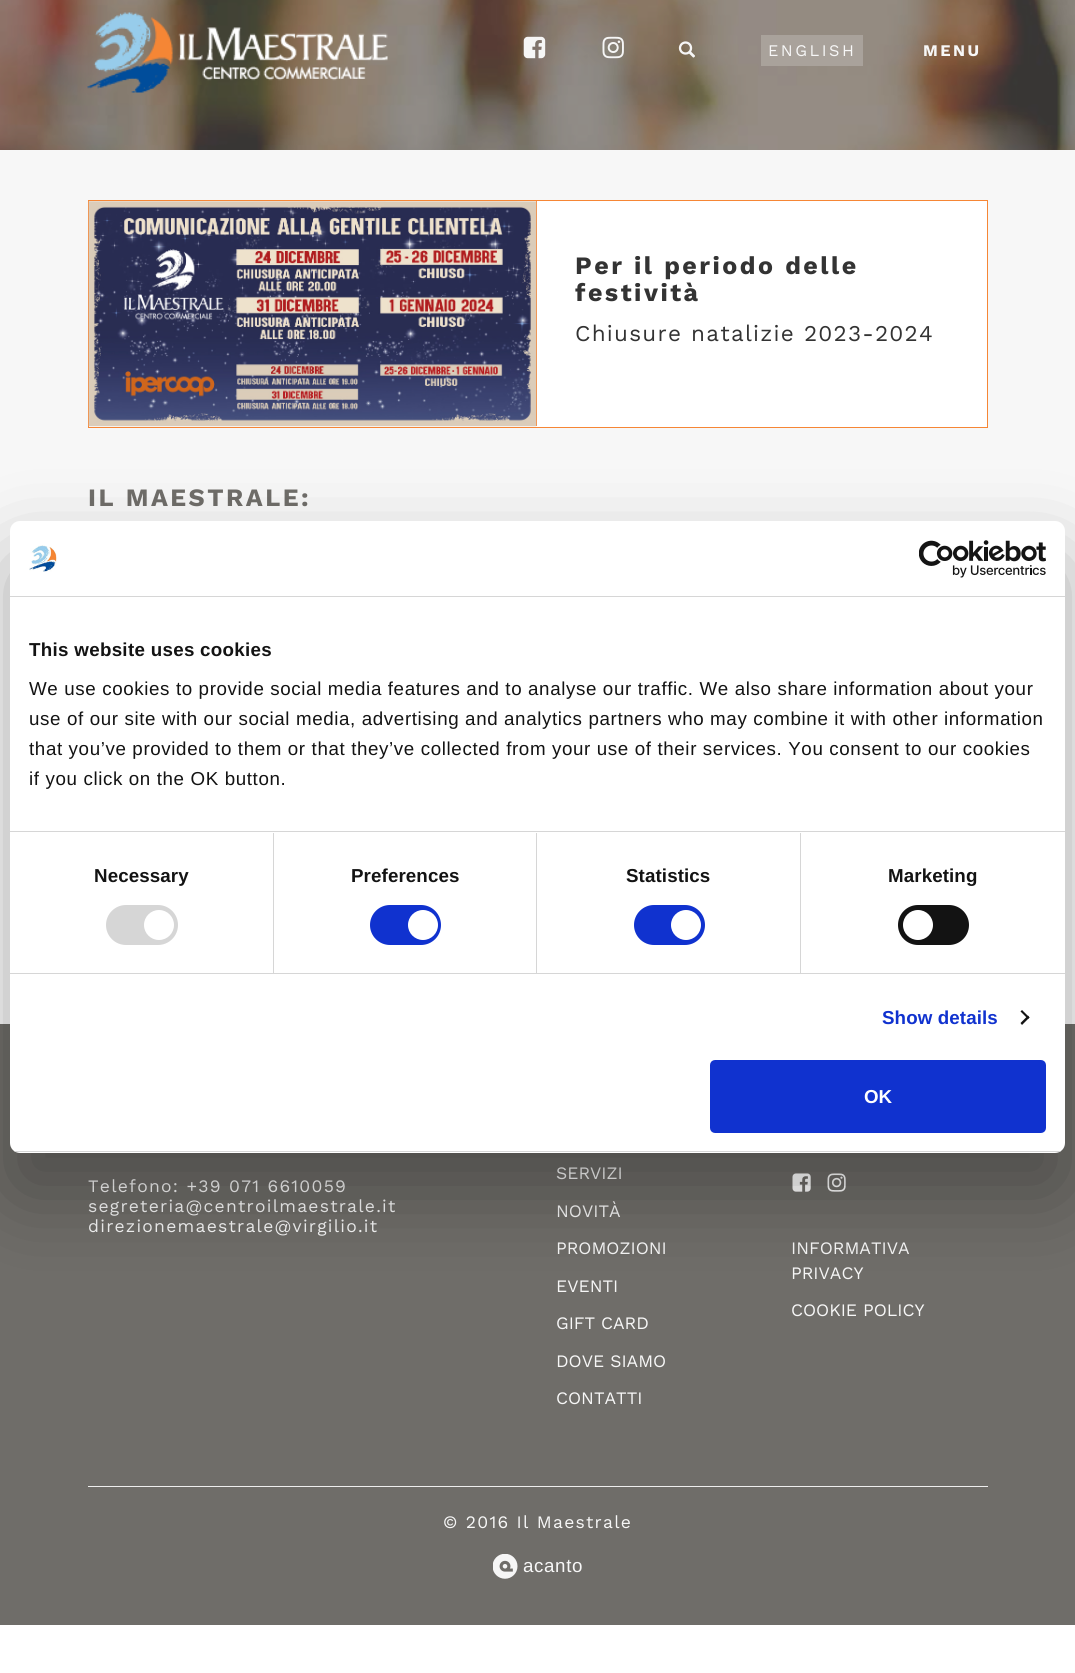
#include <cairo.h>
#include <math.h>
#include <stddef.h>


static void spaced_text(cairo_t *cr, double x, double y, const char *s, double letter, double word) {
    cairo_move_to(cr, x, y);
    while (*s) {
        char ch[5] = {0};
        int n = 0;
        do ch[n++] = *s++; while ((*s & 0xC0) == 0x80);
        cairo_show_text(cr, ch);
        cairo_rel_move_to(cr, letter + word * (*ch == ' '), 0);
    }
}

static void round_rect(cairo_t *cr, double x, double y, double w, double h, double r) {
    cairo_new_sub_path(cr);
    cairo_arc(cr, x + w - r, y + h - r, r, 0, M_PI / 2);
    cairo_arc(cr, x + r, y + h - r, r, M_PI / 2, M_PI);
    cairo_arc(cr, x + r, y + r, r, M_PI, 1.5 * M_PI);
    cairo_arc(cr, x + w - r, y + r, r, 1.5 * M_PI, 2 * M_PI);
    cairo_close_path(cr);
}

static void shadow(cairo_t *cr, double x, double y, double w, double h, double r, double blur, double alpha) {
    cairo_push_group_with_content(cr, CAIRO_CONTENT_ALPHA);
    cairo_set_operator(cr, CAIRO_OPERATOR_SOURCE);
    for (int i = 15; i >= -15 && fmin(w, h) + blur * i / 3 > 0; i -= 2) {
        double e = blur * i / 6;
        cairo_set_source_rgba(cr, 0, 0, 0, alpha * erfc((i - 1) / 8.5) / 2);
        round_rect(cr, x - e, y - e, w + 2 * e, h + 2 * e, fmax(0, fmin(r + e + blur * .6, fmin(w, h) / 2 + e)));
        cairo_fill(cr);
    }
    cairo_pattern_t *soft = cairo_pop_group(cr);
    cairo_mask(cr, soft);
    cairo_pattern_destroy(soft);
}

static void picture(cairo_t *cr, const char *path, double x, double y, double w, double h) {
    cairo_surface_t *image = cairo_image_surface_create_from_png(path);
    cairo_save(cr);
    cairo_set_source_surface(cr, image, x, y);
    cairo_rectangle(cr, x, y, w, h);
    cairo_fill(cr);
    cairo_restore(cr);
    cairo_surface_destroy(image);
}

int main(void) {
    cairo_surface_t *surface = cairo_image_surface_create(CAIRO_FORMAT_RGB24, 1075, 1673);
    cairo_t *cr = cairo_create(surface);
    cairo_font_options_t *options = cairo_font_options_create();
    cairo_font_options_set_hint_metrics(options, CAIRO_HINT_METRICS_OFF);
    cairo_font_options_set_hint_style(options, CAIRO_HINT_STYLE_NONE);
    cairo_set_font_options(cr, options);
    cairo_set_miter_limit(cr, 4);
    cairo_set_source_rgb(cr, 1, 1, 1);
    cairo_paint(cr);
    picture(cr, "img5.png", 0, 0, 1075, 150);
    picture(cr, "img1.png", 87, 12, 301, 81);
    picture(cr, "img2.png", 523, 36, 23, 23);
    picture(cr, "img3.png", 602, 36, 22, 23);
    picture(cr, "img4.png", 678, 41, 17, 17);
    cairo_set_source_rgb(cr, 0.663, 0.635, 0.608);
    cairo_rectangle(cr, 761, 35, 102, 31);
    cairo_fill(cr);
    cairo_select_font_face(cr, "Work Sans", CAIRO_FONT_SLANT_NORMAL, CAIRO_FONT_WEIGHT_NORMAL);
    cairo_set_font_size(cr, 16.25);
    cairo_set_source_rgb(cr, 0.965, 0.965, 0.965);
    spaced_text(cr, 768, 56, "ENGLISH", 2.5, 0);
    cairo_select_font_face(cr, "Work Sans", CAIRO_FONT_SLANT_NORMAL, CAIRO_FONT_WEIGHT_BOLD);
    spaced_text(cr, 923, 56, "MENU", 2.5, 0);
    cairo_rectangle(cr, 0, 150, 1075, 874);
    cairo_fill(cr);
    cairo_set_source_rgb(cr, 1, 1, 1);
    cairo_rectangle(cr, 88.5, 200.5, 899, 227);
    cairo_fill_preserve(cr);
    cairo_set_source_rgb(cr, 0.961, 0.525, 0.208);
    cairo_set_line_width(cr, 1);
    cairo_stroke(cr);
    cairo_rectangle(cr, 536, 201, 1, 225);
    cairo_fill(cr);
    picture(cr, "img6.png", 88, 201, 449, 226);
    cairo_set_font_size(cr, 25);
    cairo_set_source_rgb(cr, 0.2, 0.2, 0.2);
    spaced_text(cr, 575, 274, "Per il periodo delle", 2.5, 0);
    spaced_text(cr, 575, 301, "festività", 2.5, 0);
    cairo_select_font_face(cr, "Work Sans", CAIRO_FONT_SLANT_NORMAL, CAIRO_FONT_WEIGHT_NORMAL);
    cairo_set_font_size(cr, 22.5);
    spaced_text(cr, 575, 341, "Chiusure natalizie 2023-2024", 1.25, 0);
    cairo_select_font_face(cr, "Work Sans", CAIRO_FONT_SLANT_NORMAL, CAIRO_FONT_WEIGHT_BOLD);
    cairo_set_font_size(cr, 25);
    cairo_set_source_rgb(cr, 0.435, 0.427, 0.412);
    spaced_text(cr, 88, 506, "IL MAESTRALE:", 2.5, 0);
    cairo_rectangle(cr, 0, 1024, 1075, 601);
    cairo_fill(cr);
    cairo_select_font_face(cr, "Work Sans", CAIRO_FONT_SLANT_NORMAL, CAIRO_FONT_WEIGHT_NORMAL);
    cairo_set_font_size(cr, 17.5);
    cairo_set_source_rgb(cr, 0.965, 0.965, 0.965);
    spaced_text(cr, 88, 1192, "Telefono: +39 071 6610059", 1.25, 0);
    spaced_text(cr, 88, 1212, "segreteria@centroilmaestrale.it", 1.25, 0);
    spaced_text(cr, 88, 1232, "direzionemaestrale@virgilio.it", 1.25, 0);
    cairo_move_to(cr, 556, 1179);
    cairo_show_text(cr, "SERVIZI");
    cairo_move_to(cr, 556, 1217);
    cairo_show_text(cr, "NOVITÀ");
    cairo_move_to(cr, 556, 1254);
    cairo_show_text(cr, "PROMOZIONI");
    cairo_move_to(cr, 556, 1292);
    cairo_show_text(cr, "EVENTI");
    cairo_move_to(cr, 556, 1329);
    cairo_show_text(cr, "GIFT CARD");
    cairo_move_to(cr, 556, 1367);
    cairo_show_text(cr, "DOVE SIAMO");
    cairo_move_to(cr, 556, 1404);
    cairo_show_text(cr, "CONTATTI");
    picture(cr, "img7.png", 792, 1173, 19, 19);
    picture(cr, "img8.png", 827, 1173, 19, 19);
    cairo_move_to(cr, 791, 1254);
    cairo_show_text(cr, "INFORMATIVA");
    cairo_move_to(cr, 791, 1279);
    cairo_show_text(cr, "PRIVACY");
    cairo_move_to(cr, 791, 1316);
    cairo_show_text(cr, "COOKIE POLICY");
    cairo_set_source_rgb(cr, 0.933, 0.933, 0.933);
    cairo_rectangle(cr, 88, 1486, 900, 1);
    cairo_fill(cr);
    cairo_set_source_rgb(cr, 0.965, 0.965, 0.965);
    spaced_text(cr, 443, 1528, "© 2016 Il Maestrale", 1.25, 0);
    picture(cr, "img9.png", 493, 1554, 25, 25);
    cairo_select_font_face(cr, "Liberation Sans", CAIRO_FONT_SLANT_NORMAL, CAIRO_FONT_WEIGHT_NORMAL);
    cairo_set_font_size(cr, 18.75);
    spaced_text(cr, 523, 1572, "acanto", 0.62, 0);
    cairo_set_source_rgb(cr, 0, 0, 0);
    shadow(cr, 10, 561, 1055, 632, 10, 42.5, 0.3);
    cairo_set_source_rgb(cr, 1, 1, 1);
    round_rect(cr, 10, 521, 1055, 632, 10);
    cairo_fill(cr);
    cairo_set_source_rgb(cr, 0.839, 0.839, 0.839);
    cairo_rectangle(cr, 10, 596, 1055, 1);
    cairo_fill(cr);
    picture(cr, "img10.png", 29, 545, 28, 27);
    picture(cr, "img11.png", 919, 540, 127, 38);
    cairo_rectangle(cr, 10, 831, 1055, 1);
    cairo_fill(cr);
    cairo_select_font_face(cr, "Liberation Sans", CAIRO_FONT_SLANT_NORMAL, CAIRO_FONT_WEIGHT_BOLD);
    cairo_set_source_rgb(cr, 0.078, 0.078, 0.078);
    spaced_text(cr, 29, 656, "This website uses cookies", 0.3, 0);
    cairo_select_font_face(cr, "Liberation Sans", CAIRO_FONT_SLANT_NORMAL, CAIRO_FONT_WEIGHT_NORMAL);
    spaced_text(cr, 29, 695, "We use cookies to provide social media features and to analyse our traffic. We also share information about your", 0.62, 0);
    spaced_text(cr, 29, 725, "use of our site with our social media, advertising and analytics partners who may combine it with other information", 0.62, 0);
    spaced_text(cr, 29, 755, "that you’ve provided to them or that they’ve collected from your use of their services. You consent to our cookies", 0.62, 0);
    spaced_text(cr, 29, 785, "if you click on the OK button.", 0.62, 0);
    cairo_set_source_rgb(cr, 0.839, 0.839, 0.839);
    cairo_rectangle(cr, 10, 973, 1055, 1);
    cairo_fill(cr);
    cairo_rectangle(cr, 273, 833, 1, 140);
    cairo_fill(cr);
    cairo_select_font_face(cr, "Liberation Sans", CAIRO_FONT_SLANT_NORMAL, CAIRO_FONT_WEIGHT_BOLD);
    cairo_set_source_rgb(cr, 0.078, 0.078, 0.078);
    spaced_text(cr, 94, 882, "Necessary", 0.1, 0);
    cairo_set_source_rgb(cr, 0.839, 0.839, 0.839);
    round_rect(cr, 106, 905, 72, 40, 20);
    cairo_fill(cr);
    cairo_set_source_rgb(cr, 1, 1, 1);
    cairo_arc(cr, 159, 925, 15, 0, 2 * M_PI);
    cairo_fill(cr);
    cairo_set_source_rgb(cr, 0.839, 0.839, 0.839);
    cairo_rectangle(cr, 536, 833, 1, 140);
    cairo_fill(cr);
    cairo_set_source_rgb(cr, 0.078, 0.078, 0.078);
    spaced_text(cr, 351, 882, "Preferences", 0.1, 0);
    cairo_set_source_rgb(cr, 0.063, 0.196, 0.812);
    round_rect(cr, 370, 905, 71, 40, 20);
    cairo_fill(cr);
    cairo_set_source_rgb(cr, 1, 1, 1);
    cairo_arc(cr, 423, 925, 15, 0, 2 * M_PI);
    cairo_fill(cr);
    cairo_set_source_rgb(cr, 0.839, 0.839, 0.839);
    cairo_rectangle(cr, 800, 833, 1, 140);
    cairo_fill(cr);
    cairo_set_source_rgb(cr, 0.078, 0.078, 0.078);
    spaced_text(cr, 626, 882, "Statistics", 0.1, 0);
    cairo_set_source_rgb(cr, 0.063, 0.196, 0.812);
    round_rect(cr, 634, 905, 71, 40, 20);
    cairo_fill(cr);
    cairo_set_source_rgb(cr, 1, 1, 1);
    cairo_arc(cr, 686, 925, 15, 0, 2 * M_PI);
    cairo_fill(cr);
    cairo_set_source_rgb(cr, 0.078, 0.078, 0.078);
    spaced_text(cr, 888, 882, "Marketing", 0.1, 0);
    round_rect(cr, 898, 905, 71, 40, 20);
    cairo_fill(cr);
    cairo_set_source_rgb(cr, 1, 1, 1);
    cairo_arc(cr, 918, 925, 15, 0, 2 * M_PI);
    cairo_fill(cr);
    cairo_set_source_rgb(cr, 0.063, 0.196, 0.812);
    spaced_text(cr, 882, 1024, "Show details", 0.1, 0);
    cairo_set_source_rgb(cr, 0.078, 0.078, 0.078);
    cairo_new_path(cr);
    cairo_move_to(cr, 1022, 1010);
    cairo_line_to(cr, 1029.5, 1017.5);
    cairo_line_to(cr, 1028, 1019);
    cairo_line_to(cr, 1020.5, 1011.5);
    cairo_close_path(cr);
    cairo_fill(cr);
    cairo_new_path(cr);
    cairo_move_to(cr, 1028, 1015.5);
    cairo_line_to(cr, 1029.5, 1017.5);
    cairo_line_to(cr, 1022, 1025);
    cairo_line_to(cr, 1020.5, 1023);
    cairo_close_path(cr);
    cairo_fill(cr);
    cairo_save(cr);
    round_rect(cr, 10, 521, 1055, 632, 10);
    cairo_clip(cr);
    cairo_set_source_rgb(cr, 0.839, 0.839, 0.839);
    cairo_rectangle(cr, 10, 1151, 1055, 1);
    cairo_fill(cr);
    cairo_restore(cr);
    cairo_set_source_rgb(cr, 0.063, 0.196, 0.812);
    round_rect(cr, 711.5, 1061.5, 333, 70, 3.5);
    cairo_fill_preserve(cr);
    cairo_set_line_width(cr, 3);
    cairo_stroke(cr);
    cairo_set_source_rgb(cr, 1, 1, 1);
    cairo_move_to(cr, 864, 1103);
    cairo_show_text(cr, "OK");
    cairo_surface_write_to_png(surface, "page.png");
    cairo_font_options_destroy(options);
    cairo_destroy(cr);
    cairo_surface_destroy(surface);
    return 0;
}
